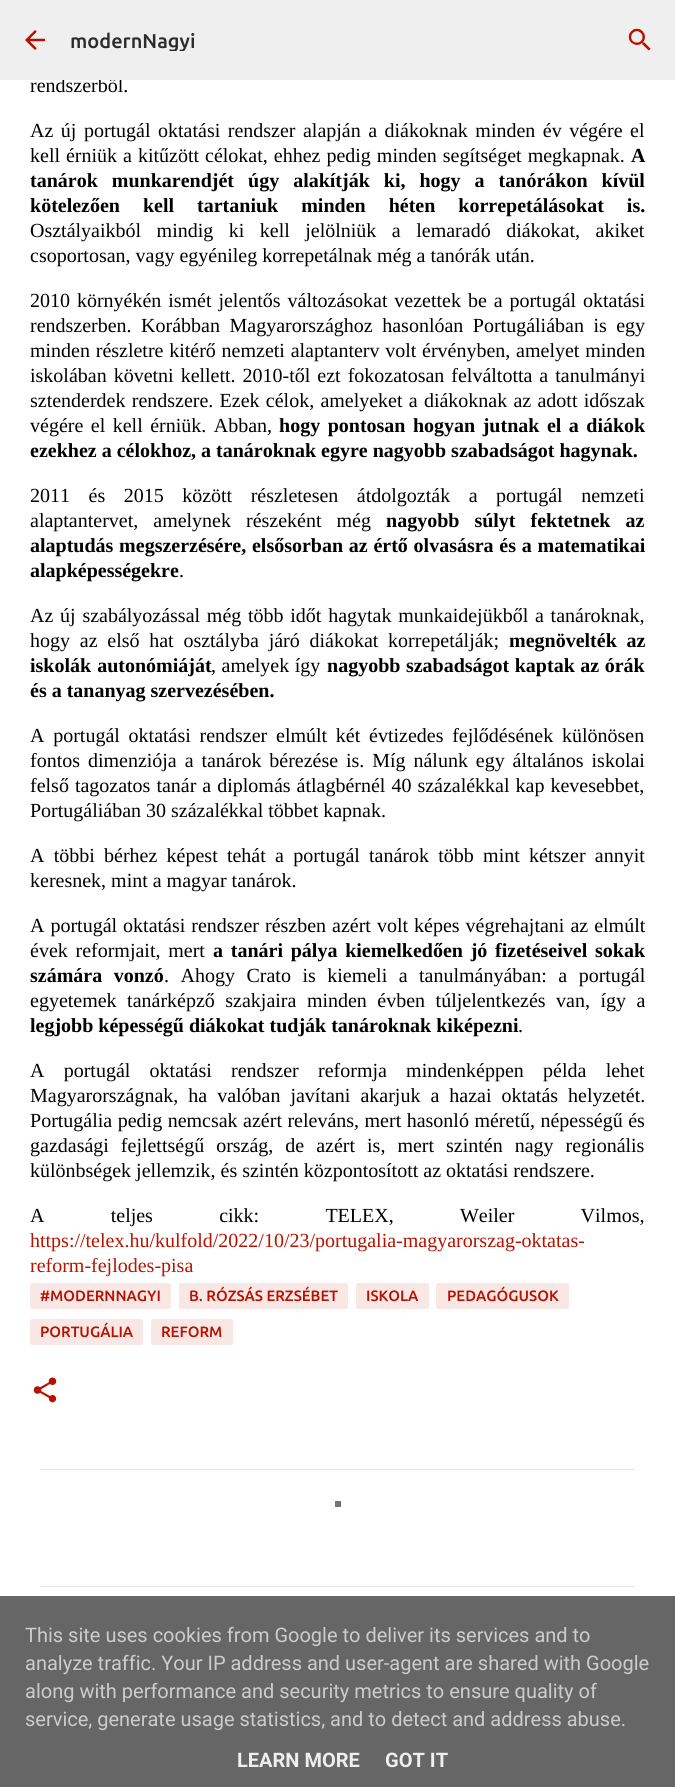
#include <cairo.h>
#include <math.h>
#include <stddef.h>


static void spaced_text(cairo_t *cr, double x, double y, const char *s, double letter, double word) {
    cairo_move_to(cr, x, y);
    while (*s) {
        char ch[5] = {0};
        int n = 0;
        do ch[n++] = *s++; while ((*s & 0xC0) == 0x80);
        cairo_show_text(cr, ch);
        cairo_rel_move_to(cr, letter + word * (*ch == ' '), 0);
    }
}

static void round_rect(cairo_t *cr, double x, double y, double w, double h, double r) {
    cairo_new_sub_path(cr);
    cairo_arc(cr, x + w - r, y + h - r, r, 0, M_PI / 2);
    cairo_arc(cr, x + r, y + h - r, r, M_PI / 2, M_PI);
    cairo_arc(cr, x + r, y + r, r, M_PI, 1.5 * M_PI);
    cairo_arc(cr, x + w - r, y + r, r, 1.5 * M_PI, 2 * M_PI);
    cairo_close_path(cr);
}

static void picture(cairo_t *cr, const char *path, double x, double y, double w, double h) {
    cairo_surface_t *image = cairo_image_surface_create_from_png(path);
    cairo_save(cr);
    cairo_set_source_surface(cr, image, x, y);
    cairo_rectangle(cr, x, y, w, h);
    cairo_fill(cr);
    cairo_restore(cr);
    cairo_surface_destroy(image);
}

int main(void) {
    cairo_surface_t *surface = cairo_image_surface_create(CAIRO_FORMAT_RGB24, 675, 1787);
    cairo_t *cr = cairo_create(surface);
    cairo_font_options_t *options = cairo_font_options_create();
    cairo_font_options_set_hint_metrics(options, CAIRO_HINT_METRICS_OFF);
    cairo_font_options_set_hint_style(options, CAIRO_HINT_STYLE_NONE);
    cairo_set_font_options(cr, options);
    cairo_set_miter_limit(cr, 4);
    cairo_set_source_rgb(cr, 1, 1, 1);
    cairo_paint(cr);
    cairo_select_font_face(cr, "Liberation Serif", CAIRO_FONT_SLANT_NORMAL, CAIRO_FONT_WEIGHT_NORMAL);
    cairo_set_font_size(cr, 20);
    cairo_set_source_rgb(cr, 0, 0, 0);
    cairo_move_to(cr, 30, 92);
    cairo_show_text(cr, "rendszerből.");
    cairo_set_source_rgb(cr, 0.937, 0.937, 0.937);
    cairo_rectangle(cr, 0, 0, 675, 80);
    cairo_fill(cr);
    picture(cr, "img1.png", 25, 30, 20, 20);
    cairo_save(cr);
    cairo_rectangle(cr, 70, 29, 535, 22);
    cairo_clip(cr);
    cairo_select_font_face(cr, "Ubuntu Medium", CAIRO_FONT_SLANT_NORMAL, CAIRO_FONT_WEIGHT_NORMAL);
    cairo_set_source_rgb(cr, 0.173, 0.173, 0.173);
    cairo_move_to(cr, 70, 48);
    cairo_show_text(cr, "modernNagyi");
    cairo_restore(cr);
    picture(cr, "img2.png", 628, 28, 23, 23);
    cairo_set_source_rgb(cr, 0, 0, 0);
    spaced_text(cr, 30, 137, "Az új portugál oktatási rendszer alapján a diákoknak minden év végére el", 0, 2.5);
    spaced_text(cr, 30, 162, "kell érniük a kitűzött célokat, ehhez pedig minden segítséget megkapnak.", 0, 1);
    cairo_select_font_face(cr, "Liberation Serif", CAIRO_FONT_SLANT_NORMAL, CAIRO_FONT_WEIGHT_BOLD);
    cairo_move_to(cr, 631, 162);
    cairo_show_text(cr, "A");
    spaced_text(cr, 30, 187, "tanárok munkarendjét úgy alakítják ki, hogy a tanórákon kívül", 0, 9);
    spaced_text(cr, 30, 212, "kötelezően kell tartaniuk minden héten korrepetálásokat is.", 0, 18);
    cairo_select_font_face(cr, "Liberation Serif", CAIRO_FONT_SLANT_NORMAL, CAIRO_FONT_WEIGHT_NORMAL);
    spaced_text(cr, 30, 237, "Osztályaikból mindig ki kell jelölniük a lemaradó diákokat, akiket", 0, 10.5);
    cairo_move_to(cr, 30, 262);
    cairo_show_text(cr, "csoportosan, vagy egyénileg korrepetálnak még a tanórák után.");
    spaced_text(cr, 30, 307, "2010 környékén ismét jelentős változásokat vezettek be a portugál oktatási", 0, 1.9);
    spaced_text(cr, 30, 332, "rendszerben. Korábban Magyarországhoz hasonlóan Portugáliában is egy", 0, 4.5);
    spaced_text(cr, 30, 357, "minden részletre kitérő nemzeti alaptanterv volt érvényben, amelyet minden", 0, 0.75);
    spaced_text(cr, 30, 382, "iskolában követni kellett. 2010-től ezt fokozatosan felváltotta a tanulmányi", 0, 2);
    spaced_text(cr, 30, 407, "sztenderdek rendszere. Ezek célok, amelyeket a diákoknak az adott időszak", 0, 1.25);
    spaced_text(cr, 30, 432, "végére el kell érniük. Abban,", 0, 2.5);
    cairo_select_font_face(cr, "Liberation Serif", CAIRO_FONT_SLANT_NORMAL, CAIRO_FONT_WEIGHT_BOLD);
    spaced_text(cr, 279, 432, "hogy pontosan hogyan jutnak el a diákok", 0, 2.5);
    cairo_move_to(cr, 30, 457);
    cairo_show_text(cr, "ezekhez a célokhoz, a tanároknak egyre nagyobb szabadságot hagynak.");
    cairo_select_font_face(cr, "Liberation Serif", CAIRO_FONT_SLANT_NORMAL, CAIRO_FONT_WEIGHT_NORMAL);
    spaced_text(cr, 30, 502, "2011 és 2015 között részletesen átdolgozták a portugál nemzeti", 0, 13.5);
    spaced_text(cr, 30, 527, "alaptantervet, amelynek részeként még", 0, 10);
    cairo_select_font_face(cr, "Liberation Serif", CAIRO_FONT_SLANT_NORMAL, CAIRO_FONT_WEIGHT_BOLD);
    spaced_text(cr, 386, 527, "nagyobb súlyt fektetnek az", 0, 10);
    spaced_text(cr, 30, 552, "alaptudás megszerzésére, elsősorban az értő olvasásra és a matematikai", 0, 0.75);
    cairo_move_to(cr, 30, 577);
    cairo_show_text(cr, "alapképességekre");
    cairo_select_font_face(cr, "Liberation Serif", CAIRO_FONT_SLANT_NORMAL, CAIRO_FONT_WEIGHT_NORMAL);
    cairo_move_to(cr, 179, 577);
    cairo_show_text(cr, ".");
    spaced_text(cr, 30, 622, "Az új szabályozással még több időt hagytak munkaidejükből a tanároknak,", 0, 1.75);
    spaced_text(cr, 30, 647, "hogy az első hat osztályba járó diákokat korrepetálják;", 0, 4.75);
    cairo_select_font_face(cr, "Liberation Serif", CAIRO_FONT_SLANT_NORMAL, CAIRO_FONT_WEIGHT_BOLD);
    spaced_text(cr, 509, 647, "megnövelték az", 0, 4.75);
    spaced_text(cr, 30, 672, "iskolák autonómiáját", 0, 1);
    cairo_select_font_face(cr, "Liberation Serif", CAIRO_FONT_SLANT_NORMAL, CAIRO_FONT_WEIGHT_NORMAL);
    spaced_text(cr, 211, 672, ", amelyek így", 0, 0.5);
    cairo_select_font_face(cr, "Liberation Serif", CAIRO_FONT_SLANT_NORMAL, CAIRO_FONT_WEIGHT_BOLD);
    spaced_text(cr, 327, 672, "nagyobb szabadságot kaptak az órák", 0, 0.5);
    cairo_move_to(cr, 30, 697);
    cairo_show_text(cr, "és a tananyag szervezésében.");
    cairo_select_font_face(cr, "Liberation Serif", CAIRO_FONT_SLANT_NORMAL, CAIRO_FONT_WEIGHT_NORMAL);
    spaced_text(cr, 30, 742, "A portugál oktatási rendszer elmúlt két évtizedes fejlődésének különösen", 0, 3.75);
    spaced_text(cr, 30, 767, "fontos dimenziója a tanárok bérezése is. Míg nálunk egy általános iskolai", 0, 2.9);
    spaced_text(cr, 30, 792, "felső tagozatos tanár a diplomás átlagbérnél 40 százalékkal kap kevesebbet,", 0, 1);
    cairo_move_to(cr, 30, 817);
    cairo_show_text(cr, "Portugáliában 30 százalékkal többet kapnak.");
    spaced_text(cr, 30, 862, "A többi bérhez képest tehát a portugál tanárok több mint kétszer annyit", 0, 4.25);
    cairo_move_to(cr, 30, 887);
    cairo_show_text(cr, "keresnek, mint a magyar tanárok.");
    spaced_text(cr, 30, 932, "A portugál oktatási rendszer részben azért volt képes végrehajtani az elmúlt", 0, 1);
    spaced_text(cr, 30, 957, "évek reformjait, mert", 0, 2.75);
    cairo_select_font_face(cr, "Liberation Serif", CAIRO_FONT_SLANT_NORMAL, CAIRO_FONT_WEIGHT_BOLD);
    spaced_text(cr, 213, 957, "a tanári pálya kiemelkedően jó fizetéseivel sokak", 0, 2.75);
    spaced_text(cr, 30, 982, "számára vonzó", 0, 6.5);
    cairo_select_font_face(cr, "Liberation Serif", CAIRO_FONT_SLANT_NORMAL, CAIRO_FONT_WEIGHT_NORMAL);
    spaced_text(cr, 164, 982, ". Ahogy Crato is kiemeli a tanulmányában: a portugál", 0, 6.5);
    spaced_text(cr, 30, 1007, "egyetemek tanárképző szakjaira minden évben túljelentkezés van, így a", 0, 5.5);
    cairo_select_font_face(cr, "Liberation Serif", CAIRO_FONT_SLANT_NORMAL, CAIRO_FONT_WEIGHT_BOLD);
    cairo_move_to(cr, 30, 1032);
    cairo_show_text(cr, "legjobb képességű diákokat tudják tanároknak kiképezni");
    cairo_select_font_face(cr, "Liberation Serif", CAIRO_FONT_SLANT_NORMAL, CAIRO_FONT_WEIGHT_NORMAL);
    cairo_move_to(cr, 518, 1032);
    cairo_show_text(cr, ".");
    spaced_text(cr, 30, 1077, "A portugál oktatási rendszer reformja mindenképpen példa lehet", 0, 14.25);
    spaced_text(cr, 30, 1102, "Magyarországnak, ha valóban javítani akarjuk a hazai oktatás helyzetét.", 0, 5);
    spaced_text(cr, 30, 1127, "Portugália pedig nemcsak azért releváns, mert hasonló méretű, népességű és", 0, 0.5);
    spaced_text(cr, 30, 1152, "gazdasági fejlettségű ország, de azért is, mert szintén nagy regionális", 0, 7);
    cairo_move_to(cr, 30, 1177);
    cairo_show_text(cr, "különbségek jellemzik, és szintén központosított az oktatási rendszere.");
    spaced_text(cr, 30, 1222, "A teljes cikk: TELEX, Weiler Vilmos,", 0, 61.25);
    cairo_set_source_rgb(cr, 0.71, 0.071, 0);
    cairo_move_to(cr, 30, 1247);
    cairo_show_text(cr, "https://telex.hu/kulfold/2022/10/23/portugalia-magyarorszag-oktatas-");
    cairo_move_to(cr, 30, 1272);
    cairo_show_text(cr, "reform-fejlodes-pisa");
    cairo_set_source_rgb(cr, 0.973, 0.906, 0.902);
    round_rect(cr, 30, 1283, 141, 26, 2.5);
    cairo_fill(cr);
    cairo_select_font_face(cr, "Ubuntu Medium", CAIRO_FONT_SLANT_NORMAL, CAIRO_FONT_WEIGHT_NORMAL);
    cairo_set_font_size(cr, 15);
    cairo_set_source_rgb(cr, 0.71, 0.071, 0);
    cairo_move_to(cr, 40, 1301);
    cairo_show_text(cr, "#MODERNNAGYI");
    cairo_set_source_rgb(cr, 0.973, 0.906, 0.902);
    round_rect(cr, 179, 1283, 169, 26, 2.5);
    cairo_fill(cr);
    cairo_set_source_rgb(cr, 0.71, 0.071, 0);
    cairo_move_to(cr, 189, 1301);
    cairo_show_text(cr, "B. RÓZSÁS ERZSÉBET");
    cairo_set_source_rgb(cr, 0.973, 0.906, 0.902);
    round_rect(cr, 356, 1283, 73, 26, 2.5);
    cairo_fill(cr);
    cairo_set_source_rgb(cr, 0.71, 0.071, 0);
    cairo_move_to(cr, 366, 1301);
    cairo_show_text(cr, "ISKOLA");
    cairo_set_source_rgb(cr, 0.973, 0.906, 0.902);
    round_rect(cr, 436, 1283, 133, 26, 2.5);
    cairo_fill(cr);
    cairo_set_source_rgb(cr, 0.71, 0.071, 0);
    cairo_move_to(cr, 447, 1301);
    cairo_show_text(cr, "PEDAGÓGUSOK");
    cairo_set_source_rgb(cr, 0.973, 0.906, 0.902);
    round_rect(cr, 30, 1319, 113, 26, 2.5);
    cairo_fill(cr);
    cairo_set_source_rgb(cr, 0.71, 0.071, 0);
    cairo_move_to(cr, 40, 1337);
    cairo_show_text(cr, "PORTUGÁLIA");
    cairo_set_source_rgb(cr, 0.973, 0.906, 0.902);
    round_rect(cr, 151, 1319, 82, 26, 2.5);
    cairo_fill(cr);
    cairo_set_source_rgb(cr, 0.71, 0.071, 0);
    cairo_move_to(cr, 161, 1337);
    cairo_show_text(cr, "REFORM");
    picture(cr, "img3.png", 33, 1377, 24, 26);
    cairo_set_source_rgb(cr, 0.902, 0.902, 0.902);
    cairo_rectangle(cr, 40, 1469, 595, 1);
    cairo_fill(cr);
    cairo_rectangle(cr, 40, 1586, 595, 1);
    cairo_fill(cr);
    cairo_set_source_rgb(cr, 0.459, 0.459, 0.459);
    cairo_rectangle(cr, 335, 1501, 6, 6);
    cairo_fill(cr);
    cairo_set_source_rgb(cr, 0.4, 0.4, 0.4);
    cairo_rectangle(cr, 0, 1596, 675, 191);
    cairo_fill(cr);
    cairo_select_font_face(cr, "Roboto", CAIRO_FONT_SLANT_NORMAL, CAIRO_FONT_WEIGHT_NORMAL);
    cairo_set_font_size(cr, 20);
    cairo_set_source_rgb(cr, 0.8, 0.8, 0.8);
    cairo_move_to(cr, 25, 1642);
    cairo_show_text(cr, "This site uses cookies from Google to deliver its services and to");
    cairo_move_to(cr, 25, 1670);
    cairo_show_text(cr, "analyze traffic. Your IP address and user-agent are shared with Google");
    cairo_move_to(cr, 25, 1698);
    cairo_show_text(cr, "along with performance and security metrics to ensure quality of");
    cairo_move_to(cr, 25, 1726);
    cairo_show_text(cr, "service, generate usage statistics, and to detect and address abuse.");
    cairo_select_font_face(cr, "Roboto", CAIRO_FONT_SLANT_NORMAL, CAIRO_FONT_WEIGHT_BOLD);
    cairo_set_source_rgb(cr, 0.933, 0.933, 0.933);
    cairo_move_to(cr, 237, 1767);
    cairo_show_text(cr, "LEARN MORE");
    cairo_move_to(cr, 385, 1767);
    cairo_show_text(cr, "GOT IT");
    cairo_surface_write_to_png(surface, "page.png");
    cairo_font_options_destroy(options);
    cairo_destroy(cr);
    cairo_surface_destroy(surface);
    return 0;
}
